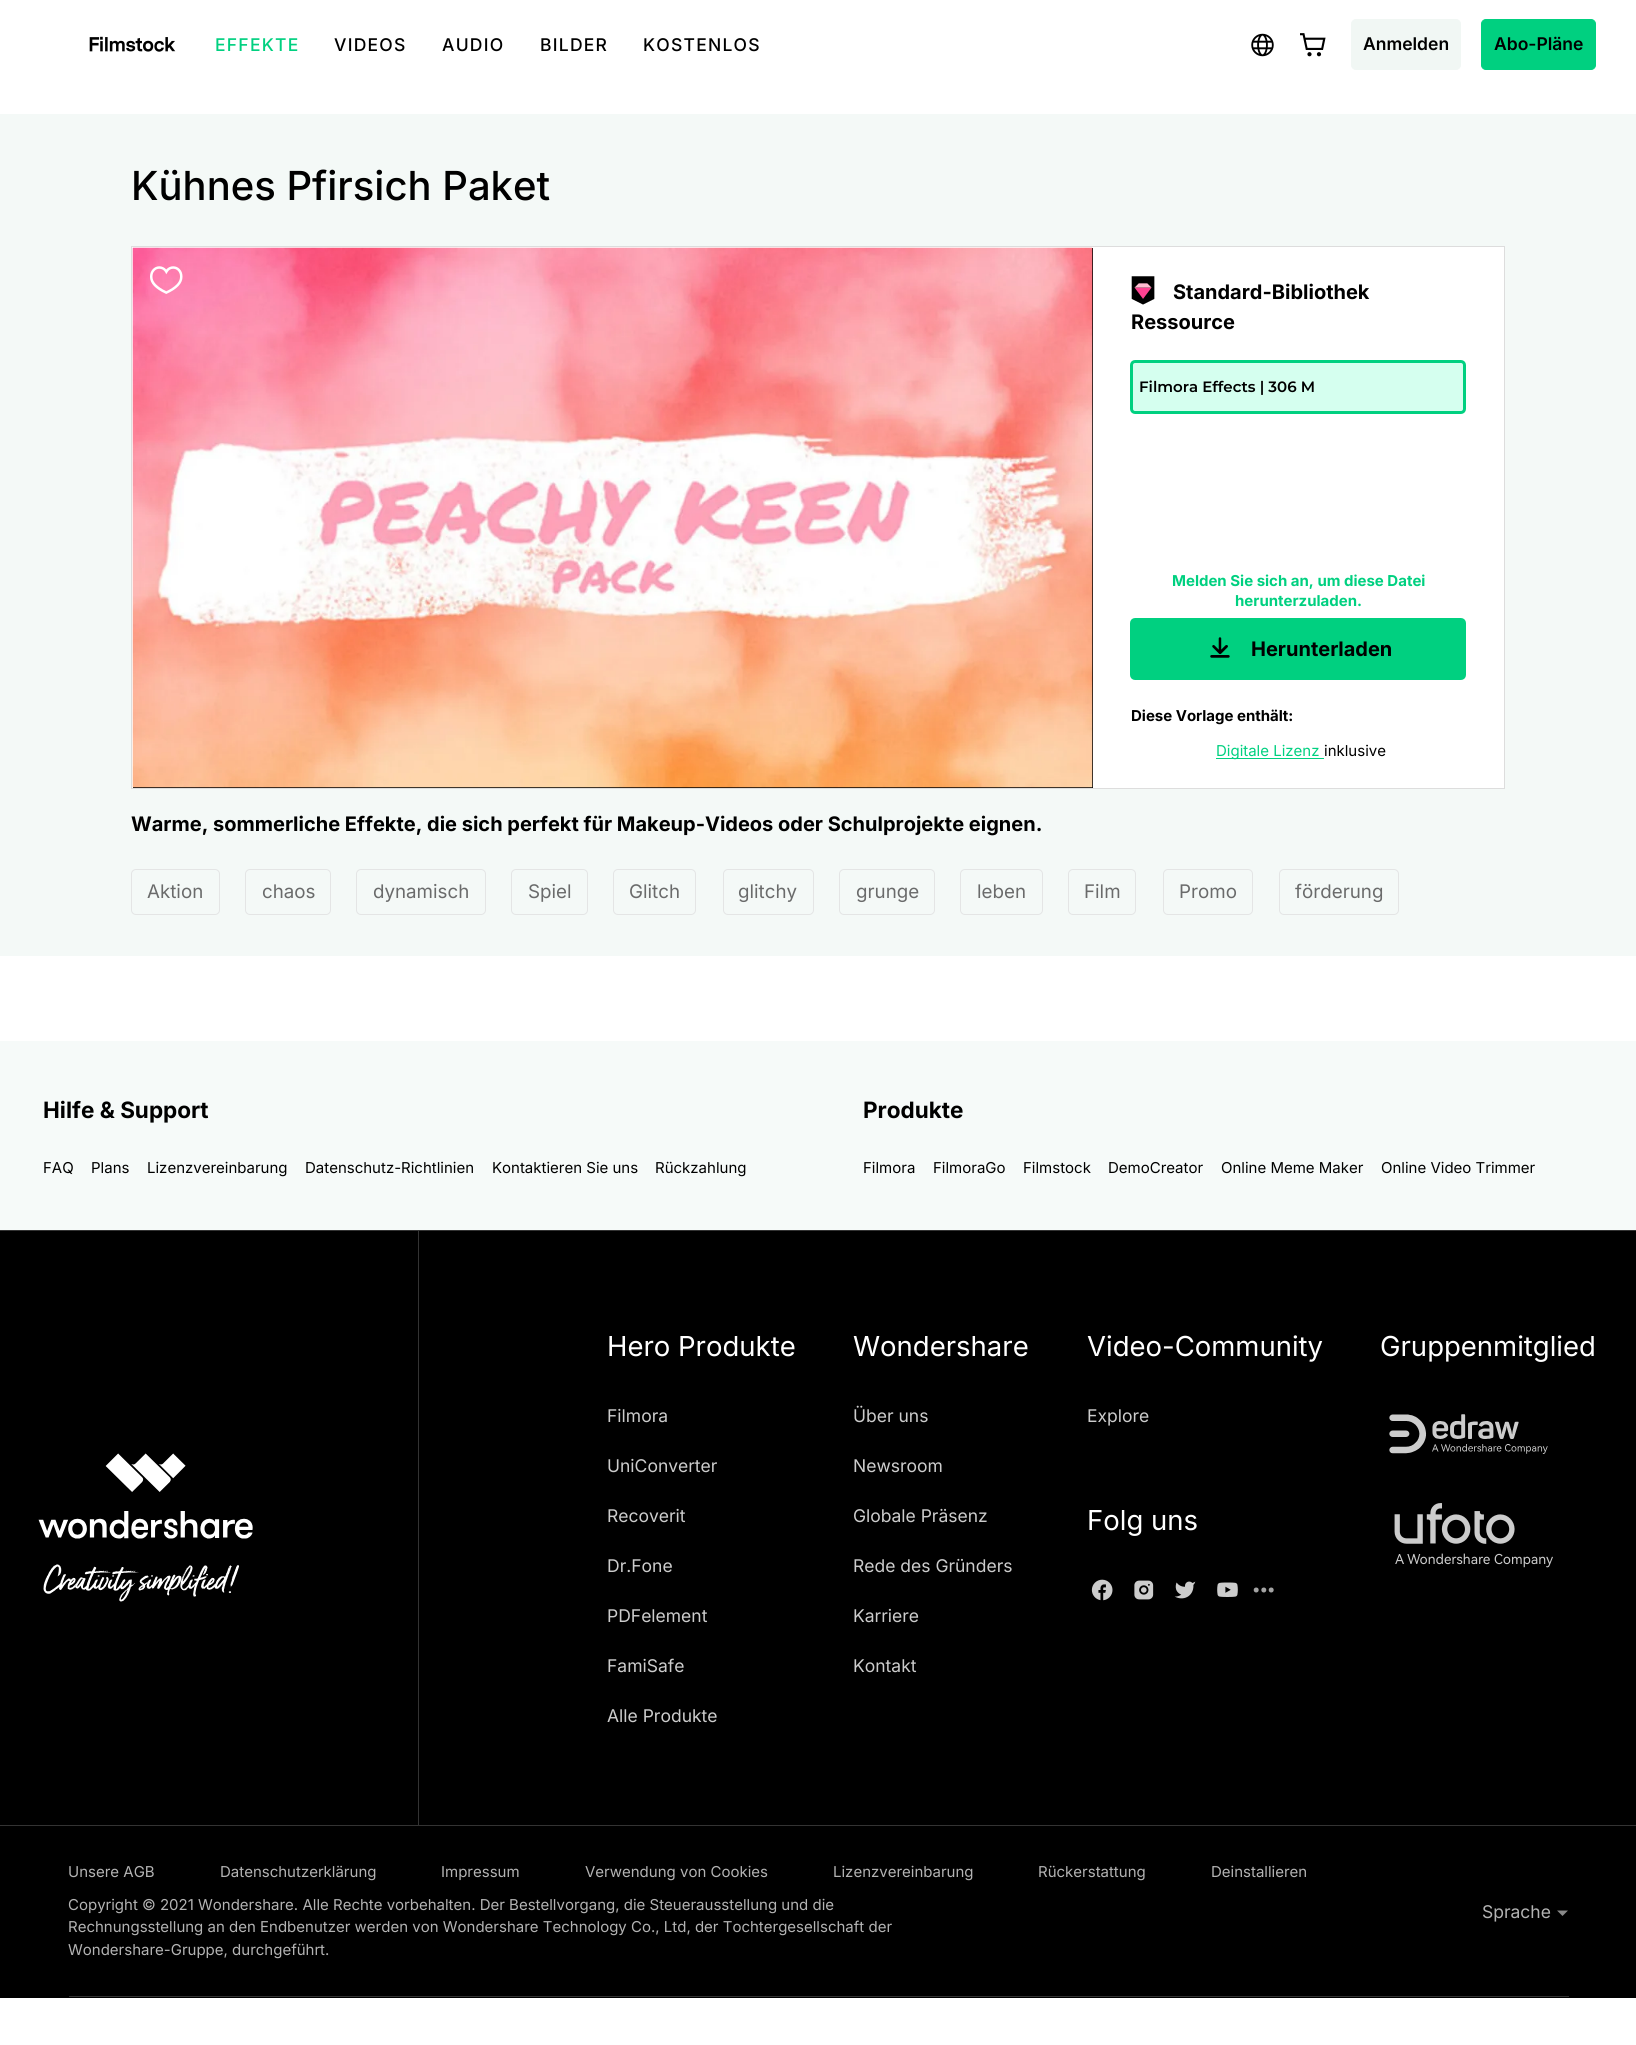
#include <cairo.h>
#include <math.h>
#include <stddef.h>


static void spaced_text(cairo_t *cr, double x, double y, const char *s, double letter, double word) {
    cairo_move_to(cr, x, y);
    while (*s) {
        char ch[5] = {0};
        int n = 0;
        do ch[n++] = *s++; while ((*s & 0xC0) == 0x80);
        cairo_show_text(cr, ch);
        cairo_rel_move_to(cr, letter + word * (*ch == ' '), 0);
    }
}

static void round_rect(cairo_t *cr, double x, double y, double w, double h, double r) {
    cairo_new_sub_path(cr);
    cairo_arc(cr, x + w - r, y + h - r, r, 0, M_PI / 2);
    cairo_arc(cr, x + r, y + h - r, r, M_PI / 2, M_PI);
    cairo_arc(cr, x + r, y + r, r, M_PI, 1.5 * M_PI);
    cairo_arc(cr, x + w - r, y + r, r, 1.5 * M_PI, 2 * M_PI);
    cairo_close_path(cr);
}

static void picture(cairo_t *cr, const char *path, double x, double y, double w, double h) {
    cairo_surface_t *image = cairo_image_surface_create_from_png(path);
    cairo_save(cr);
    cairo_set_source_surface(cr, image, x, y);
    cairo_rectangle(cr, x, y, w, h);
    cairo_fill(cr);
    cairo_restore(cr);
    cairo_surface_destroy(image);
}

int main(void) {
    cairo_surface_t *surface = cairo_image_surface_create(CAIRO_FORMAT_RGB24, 1636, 2045);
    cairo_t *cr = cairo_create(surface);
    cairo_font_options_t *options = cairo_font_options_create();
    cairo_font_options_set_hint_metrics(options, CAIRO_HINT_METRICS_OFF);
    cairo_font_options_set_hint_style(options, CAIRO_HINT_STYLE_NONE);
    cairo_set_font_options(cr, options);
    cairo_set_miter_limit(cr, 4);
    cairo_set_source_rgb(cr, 1, 1, 1);
    cairo_paint(cr);
    cairo_set_source_rgb(cr, 0.957, 0.973, 0.965);
    cairo_rectangle(cr, 0, 114, 1636, 842);
    cairo_fill(cr);
    picture(cr, "img1.png", 89, 36, 87, 16);
    cairo_select_font_face(cr, "Inter Medium", CAIRO_FONT_SLANT_NORMAL, CAIRO_FONT_WEIGHT_NORMAL);
    cairo_set_font_size(cr, 17.5);
    cairo_set_source_rgb(cr, 0, 0.816, 0.502);
    spaced_text(cr, 215, 51, "EFFEKTE", 1.25, 0);
    cairo_set_source_rgb(cr, 0, 0, 0);
    spaced_text(cr, 334, 51, "VIDEOS", 1.25, 0);
    spaced_text(cr, 442, 51, "AUDIO", 1.25, 0);
    spaced_text(cr, 540, 51, "BILDER", 1.25, 0);
    spaced_text(cr, 643, 51, "KOSTENLOS", 1.25, 0);
    picture(cr, "img2.png", 1251, 33, 23, 24);
    picture(cr, "img3.png", 1300, 33, 26, 24);
    cairo_set_source_rgb(cr, 0.945, 0.965, 0.957);
    round_rect(cr, 1351.5, 19.5, 109, 50, 4.5);
    cairo_fill_preserve(cr);
    cairo_set_line_width(cr, 1);
    cairo_stroke(cr);
    cairo_select_font_face(cr, "Inter SemiBold", CAIRO_FONT_SLANT_NORMAL, CAIRO_FONT_WEIGHT_NORMAL);
    cairo_set_source_rgb(cr, 0, 0, 0);
    cairo_move_to(cr, 1363, 50);
    cairo_show_text(cr, "Anmelden");
    cairo_set_source_rgb(cr, 0, 0.816, 0.502);
    round_rect(cr, 1481.5, 19.5, 114, 50, 4.5);
    cairo_fill_preserve(cr);
    cairo_stroke(cr);
    cairo_set_source_rgb(cr, 0, 0, 0);
    cairo_move_to(cr, 1494, 50);
    cairo_show_text(cr, "Abo-Pläne");
    cairo_select_font_face(cr, "Inter Medium", CAIRO_FONT_SLANT_NORMAL, CAIRO_FONT_WEIGHT_NORMAL);
    cairo_set_font_size(cr, 40);
    cairo_move_to(cr, 131, 200);
    cairo_show_text(cr, "Kühnes Pfirsich Paket");
    cairo_set_source_rgb(cr, 1, 1, 1);
    cairo_rectangle(cr, 131.5, 246.5, 1373, 542);
    cairo_fill_preserve(cr);
    cairo_set_source_rgb(cr, 0.867, 0.867, 0.867);
    cairo_stroke(cr);
    cairo_set_source_rgb(cr, 0, 0, 0);
    cairo_rectangle(cr, 133, 248, 960, 540);
    cairo_fill(cr);
    picture(cr, "img4.png", 132, 247, 961, 541);
    picture(cr, "img5.png", 150, 266, 33, 28);
    picture(cr, "img6.png", 1131, 276, 24, 29);
    cairo_select_font_face(cr, "Inter", CAIRO_FONT_SLANT_NORMAL, CAIRO_FONT_WEIGHT_BOLD);
    cairo_set_font_size(cr, 20);
    cairo_move_to(cr, 1173, 299);
    cairo_show_text(cr, "Standard-Bibliothek");
    cairo_move_to(cr, 1131, 329);
    cairo_show_text(cr, "Ressource");
    cairo_set_source_rgb(cr, 0.835, 1, 0.937);
    round_rect(cr, 1131.5, 361.5, 333, 51, 3.5);
    cairo_fill_preserve(cr);
    cairo_set_source_rgb(cr, 0, 0.816, 0.502);
    cairo_set_line_width(cr, 3);
    cairo_stroke(cr);
    cairo_select_font_face(cr, "Montserrat SemiBold", CAIRO_FONT_SLANT_NORMAL, CAIRO_FONT_WEIGHT_NORMAL);
    cairo_set_font_size(cr, 15);
    cairo_set_source_rgb(cr, 0, 0, 0);
    cairo_move_to(cr, 1139, 392);
    cairo_show_text(cr, "Filmora Effects | 306 M");
    cairo_select_font_face(cr, "Inter", CAIRO_FONT_SLANT_NORMAL, CAIRO_FONT_WEIGHT_BOLD);
    cairo_set_source_rgb(cr, 0, 0.816, 0.502);
    cairo_move_to(cr, 1172, 586);
    cairo_show_text(cr, "Melden Sie sich an, um diese Datei");
    cairo_move_to(cr, 1235, 606);
    cairo_show_text(cr, "herunterzuladen.");
    round_rect(cr, 1131.5, 619.5, 333, 59, 3.5);
    cairo_fill_preserve(cr);
    cairo_stroke(cr);
    picture(cr, "img7.png", 1210, 637, 20, 21);
    cairo_set_font_size(cr, 20);
    cairo_set_source_rgb(cr, 0, 0, 0);
    cairo_move_to(cr, 1251, 656);
    cairo_show_text(cr, "Herunterladen");
    cairo_set_font_size(cr, 15);
    cairo_move_to(cr, 1131, 721);
    cairo_show_text(cr, "Diese Vorlage enthält:");
    cairo_set_source_rgb(cr, 0, 0.816, 0.502);
    cairo_rectangle(cr, 1216, 758, 108, 1);
    cairo_fill(cr);
    cairo_select_font_face(cr, "Inter", CAIRO_FONT_SLANT_NORMAL, CAIRO_FONT_WEIGHT_NORMAL);
    cairo_move_to(cr, 1216, 756);
    cairo_show_text(cr, "Digitale Lizenz");
    cairo_set_source_rgb(cr, 0, 0, 0);
    cairo_move_to(cr, 1324, 756);
    cairo_show_text(cr, "inklusive");
    cairo_select_font_face(cr, "Inter", CAIRO_FONT_SLANT_NORMAL, CAIRO_FONT_WEIGHT_BOLD);
    cairo_set_font_size(cr, 20);
    cairo_move_to(cr, 131, 831);
    cairo_show_text(cr, "Warme, sommerliche Effekte, die sich perfekt für Makeup-Videos oder Schulprojekte eignen.");
    round_rect(cr, 131.5, 869.5, 88, 45, 4.5);
    cairo_set_source_rgb(cr, 0.894, 0.898, 0.898);
    cairo_set_line_width(cr, 1);
    cairo_stroke(cr);
    cairo_select_font_face(cr, "Inter", CAIRO_FONT_SLANT_NORMAL, CAIRO_FONT_WEIGHT_NORMAL);
    cairo_set_font_size(cr, 18.75);
    cairo_set_source_rgb(cr, 0.416, 0.42, 0.42);
    cairo_move_to(cr, 147, 898);
    cairo_show_text(cr, "Aktion");
    round_rect(cr, 245.5, 869.5, 85, 45, 4.5);
    cairo_set_source_rgb(cr, 0.894, 0.898, 0.898);
    cairo_stroke(cr);
    cairo_set_source_rgb(cr, 0.416, 0.42, 0.42);
    cairo_move_to(cr, 262, 898);
    cairo_show_text(cr, "chaos");
    round_rect(cr, 356.5, 869.5, 129, 45, 4.5);
    cairo_set_source_rgb(cr, 0.894, 0.898, 0.898);
    cairo_stroke(cr);
    cairo_set_source_rgb(cr, 0.416, 0.42, 0.42);
    cairo_move_to(cr, 373, 898);
    cairo_show_text(cr, "dynamisch");
    round_rect(cr, 511.5, 869.5, 76, 45, 4.5);
    cairo_set_source_rgb(cr, 0.894, 0.898, 0.898);
    cairo_stroke(cr);
    cairo_set_source_rgb(cr, 0.416, 0.42, 0.42);
    cairo_move_to(cr, 528, 898);
    cairo_show_text(cr, "Spiel");
    round_rect(cr, 613.5, 869.5, 82, 45, 4.5);
    cairo_set_source_rgb(cr, 0.894, 0.898, 0.898);
    cairo_stroke(cr);
    cairo_set_source_rgb(cr, 0.416, 0.42, 0.42);
    cairo_move_to(cr, 629, 898);
    cairo_show_text(cr, "Glitch");
    round_rect(cr, 723.5, 869.5, 90, 45, 4.5);
    cairo_set_source_rgb(cr, 0.894, 0.898, 0.898);
    cairo_stroke(cr);
    cairo_set_source_rgb(cr, 0.416, 0.42, 0.42);
    cairo_move_to(cr, 738, 898);
    cairo_show_text(cr, "glitchy");
    round_rect(cr, 839.5, 869.5, 95, 45, 4.5);
    cairo_set_source_rgb(cr, 0.894, 0.898, 0.898);
    cairo_stroke(cr);
    cairo_set_source_rgb(cr, 0.416, 0.42, 0.42);
    cairo_move_to(cr, 856, 898);
    cairo_show_text(cr, "grunge");
    round_rect(cr, 960.5, 869.5, 82, 45, 4.5);
    cairo_set_source_rgb(cr, 0.894, 0.898, 0.898);
    cairo_stroke(cr);
    cairo_set_source_rgb(cr, 0.416, 0.42, 0.42);
    cairo_move_to(cr, 977, 898);
    cairo_show_text(cr, "leben");
    round_rect(cr, 1068.5, 869.5, 67, 45, 4.5);
    cairo_set_source_rgb(cr, 0.894, 0.898, 0.898);
    cairo_stroke(cr);
    cairo_set_source_rgb(cr, 0.416, 0.42, 0.42);
    cairo_move_to(cr, 1084, 898);
    cairo_show_text(cr, "Film");
    round_rect(cr, 1163.5, 869.5, 89, 45, 4.5);
    cairo_set_source_rgb(cr, 0.894, 0.898, 0.898);
    cairo_stroke(cr);
    cairo_set_source_rgb(cr, 0.416, 0.42, 0.42);
    cairo_move_to(cr, 1179, 898);
    cairo_show_text(cr, "Promo");
    round_rect(cr, 1279.5, 869.5, 119, 45, 4.5);
    cairo_set_source_rgb(cr, 0.894, 0.898, 0.898);
    cairo_stroke(cr);
    cairo_set_source_rgb(cr, 0.416, 0.42, 0.42);
    cairo_move_to(cr, 1295, 898);
    cairo_show_text(cr, "förderung");
    cairo_set_source_rgb(cr, 0.961, 0.98, 0.973);
    cairo_rectangle(cr, 0, 1041, 1636, 189);
    cairo_fill(cr);
    cairo_select_font_face(cr, "Inter", CAIRO_FONT_SLANT_NORMAL, CAIRO_FONT_WEIGHT_BOLD);
    cairo_set_font_size(cr, 22.5);
    cairo_set_source_rgb(cr, 0, 0, 0);
    cairo_move_to(cr, 43, 1118);
    cairo_show_text(cr, "Hilfe & Support");
    cairo_select_font_face(cr, "Inter", CAIRO_FONT_SLANT_NORMAL, CAIRO_FONT_WEIGHT_NORMAL);
    cairo_set_font_size(cr, 15);
    cairo_move_to(cr, 43, 1173);
    cairo_show_text(cr, "FAQ");
    cairo_move_to(cr, 91, 1173);
    cairo_show_text(cr, "Plans");
    cairo_move_to(cr, 147, 1173);
    cairo_show_text(cr, "Lizenzvereinbarung");
    cairo_move_to(cr, 305, 1173);
    cairo_show_text(cr, "Datenschutz-Richtlinien");
    cairo_move_to(cr, 492, 1173);
    cairo_show_text(cr, "Kontaktieren Sie uns");
    cairo_move_to(cr, 655, 1173);
    cairo_show_text(cr, "Rückzahlung");
    cairo_select_font_face(cr, "Inter", CAIRO_FONT_SLANT_NORMAL, CAIRO_FONT_WEIGHT_BOLD);
    cairo_set_font_size(cr, 22.5);
    cairo_move_to(cr, 863, 1118);
    cairo_show_text(cr, "Produkte");
    cairo_select_font_face(cr, "Inter", CAIRO_FONT_SLANT_NORMAL, CAIRO_FONT_WEIGHT_NORMAL);
    cairo_set_font_size(cr, 15);
    cairo_move_to(cr, 863, 1173);
    cairo_show_text(cr, "Filmora");
    cairo_move_to(cr, 933, 1173);
    cairo_show_text(cr, "FilmoraGo");
    cairo_move_to(cr, 1023, 1173);
    cairo_show_text(cr, "Filmstock");
    cairo_move_to(cr, 1108, 1173);
    cairo_show_text(cr, "DemoCreator");
    cairo_move_to(cr, 1221, 1173);
    cairo_show_text(cr, "Online Meme Maker");
    cairo_move_to(cr, 1381, 1173);
    cairo_show_text(cr, "Online Video Trimmer");
    cairo_rectangle(cr, 0, 1231, 1636, 767);
    cairo_fill(cr);
    cairo_set_source_rgb(cr, 0.2, 0.2, 0.2);
    cairo_rectangle(cr, 0, 1230, 1636, 1);
    cairo_fill(cr);
    cairo_rectangle(cr, 0, 1825, 1636, 1);
    cairo_fill(cr);
    cairo_rectangle(cr, 418, 1231, 1, 594);
    cairo_fill(cr);
    picture(cr, "img8.png", 38, 1453, 215, 149);
    cairo_set_font_size(cr, 27.5);
    cairo_set_source_rgb(cr, 1, 1, 1);
    cairo_move_to(cr, 607, 1356);
    cairo_show_text(cr, "Hero Produkte");
    cairo_set_font_size(cr, 17.5);
    cairo_set_source_rgb(cr, 0.8, 0.8, 0.8);
    cairo_move_to(cr, 607, 1422);
    cairo_show_text(cr, "Filmora");
    cairo_move_to(cr, 607, 1472);
    cairo_show_text(cr, "UniConverter");
    cairo_move_to(cr, 607, 1522);
    cairo_show_text(cr, "Recoverit");
    cairo_move_to(cr, 607, 1572);
    cairo_show_text(cr, "Dr.Fone");
    cairo_move_to(cr, 607, 1622);
    cairo_show_text(cr, "PDFelement");
    cairo_move_to(cr, 607, 1672);
    cairo_show_text(cr, "FamiSafe");
    cairo_move_to(cr, 607, 1722);
    cairo_show_text(cr, "Alle Produkte");
    cairo_set_font_size(cr, 27.5);
    cairo_set_source_rgb(cr, 1, 1, 1);
    cairo_move_to(cr, 853, 1356);
    cairo_show_text(cr, "Wondershare");
    cairo_set_font_size(cr, 17.5);
    cairo_set_source_rgb(cr, 0.8, 0.8, 0.8);
    cairo_move_to(cr, 853, 1422);
    cairo_show_text(cr, "Über uns");
    cairo_move_to(cr, 853, 1472);
    cairo_show_text(cr, "Newsroom");
    cairo_move_to(cr, 853, 1522);
    cairo_show_text(cr, "Globale Präsenz");
    cairo_move_to(cr, 853, 1572);
    cairo_show_text(cr, "Rede des Gründers");
    cairo_move_to(cr, 853, 1622);
    cairo_show_text(cr, "Karriere");
    cairo_move_to(cr, 853, 1672);
    cairo_show_text(cr, "Kontakt");
    cairo_set_font_size(cr, 27.5);
    cairo_set_source_rgb(cr, 1, 1, 1);
    cairo_move_to(cr, 1087, 1356);
    cairo_show_text(cr, "Video-Community");
    cairo_set_font_size(cr, 17.5);
    cairo_set_source_rgb(cr, 0.8, 0.8, 0.8);
    cairo_move_to(cr, 1087, 1422);
    cairo_show_text(cr, "Explore");
    cairo_set_font_size(cr, 27.5);
    cairo_set_source_rgb(cr, 1, 1, 1);
    cairo_move_to(cr, 1087, 1530);
    cairo_show_text(cr, "Folg uns");
    picture(cr, "img9.png", 1091, 1579, 22, 22);
    picture(cr, "img10.png", 1134, 1580, 20, 20);
    picture(cr, "img11.png", 1174, 1581, 22, 18);
    picture(cr, "img12.png", 1217, 1582, 21, 15);
    cairo_set_source_rgb(cr, 0.639, 0.639, 0.639);
    cairo_arc(cr, 1256.2, 1590, 2.5, 0, 2 * M_PI);
    cairo_fill(cr);
    cairo_arc(cr, 1263.8, 1590, 2.5, 0, 2 * M_PI);
    cairo_fill(cr);
    cairo_arc(cr, 1271.2, 1590, 2.5, 0, 2 * M_PI);
    cairo_fill(cr);
    cairo_set_source_rgb(cr, 1, 1, 1);
    cairo_move_to(cr, 1380, 1356);
    cairo_show_text(cr, "Gruppenmitglied");
    picture(cr, "img13.png", 1389, 1414, 159, 40);
    picture(cr, "img14.png", 1394, 1503, 159, 65);
    cairo_set_source_rgb(cr, 0.2, 0.2, 0.2);
    cairo_rectangle(cr, 69, 1996, 1500, 1);
    cairo_fill(cr);
    cairo_set_font_size(cr, 15);
    cairo_set_source_rgb(cr, 0.702, 0.702, 0.702);
    cairo_move_to(cr, 68, 1877);
    cairo_show_text(cr, "Unsere AGB");
    cairo_move_to(cr, 220, 1877);
    cairo_show_text(cr, "Datenschutzerklärung");
    cairo_move_to(cr, 441, 1877);
    cairo_show_text(cr, "Impressum");
    cairo_move_to(cr, 585, 1877);
    cairo_show_text(cr, "Verwendung von Cookies");
    cairo_move_to(cr, 833, 1877);
    cairo_show_text(cr, "Lizenzvereinbarung");
    cairo_move_to(cr, 1038, 1877);
    cairo_show_text(cr, "Rückerstattung");
    cairo_move_to(cr, 1211, 1877);
    cairo_show_text(cr, "Deinstallieren");
    cairo_move_to(cr, 68, 1910);
    cairo_show_text(cr, "Copyright © 2021 Wondershare. Alle Rechte vorbehalten. Der Bestellvorgang, die Steuerausstellung und die");
    cairo_move_to(cr, 68, 1932);
    cairo_show_text(cr, "Rechnungsstellung an den Endbenutzer werden von Wondershare Technology Co., Ltd, der Tochtergesellschaft der");
    cairo_move_to(cr, 68, 1955);
    cairo_show_text(cr, "Wondershare-Gruppe, durchgeführt.");
    cairo_set_font_size(cr, 17.5);
    cairo_move_to(cr, 1482, 1918);
    cairo_show_text(cr, "Sprache");
    cairo_set_source_rgb(cr, 0.537, 0.537, 0.537);
    cairo_new_path(cr);
    cairo_move_to(cr, 1562.5, 1916);
    cairo_line_to(cr, 1557, 1910.5);
    cairo_line_to(cr, 1568, 1910.5);
    cairo_close_path(cr);
    cairo_fill(cr);
    cairo_surface_write_to_png(surface, "page.png");
    cairo_font_options_destroy(options);
    cairo_destroy(cr);
    cairo_surface_destroy(surface);
    return 0;
}
